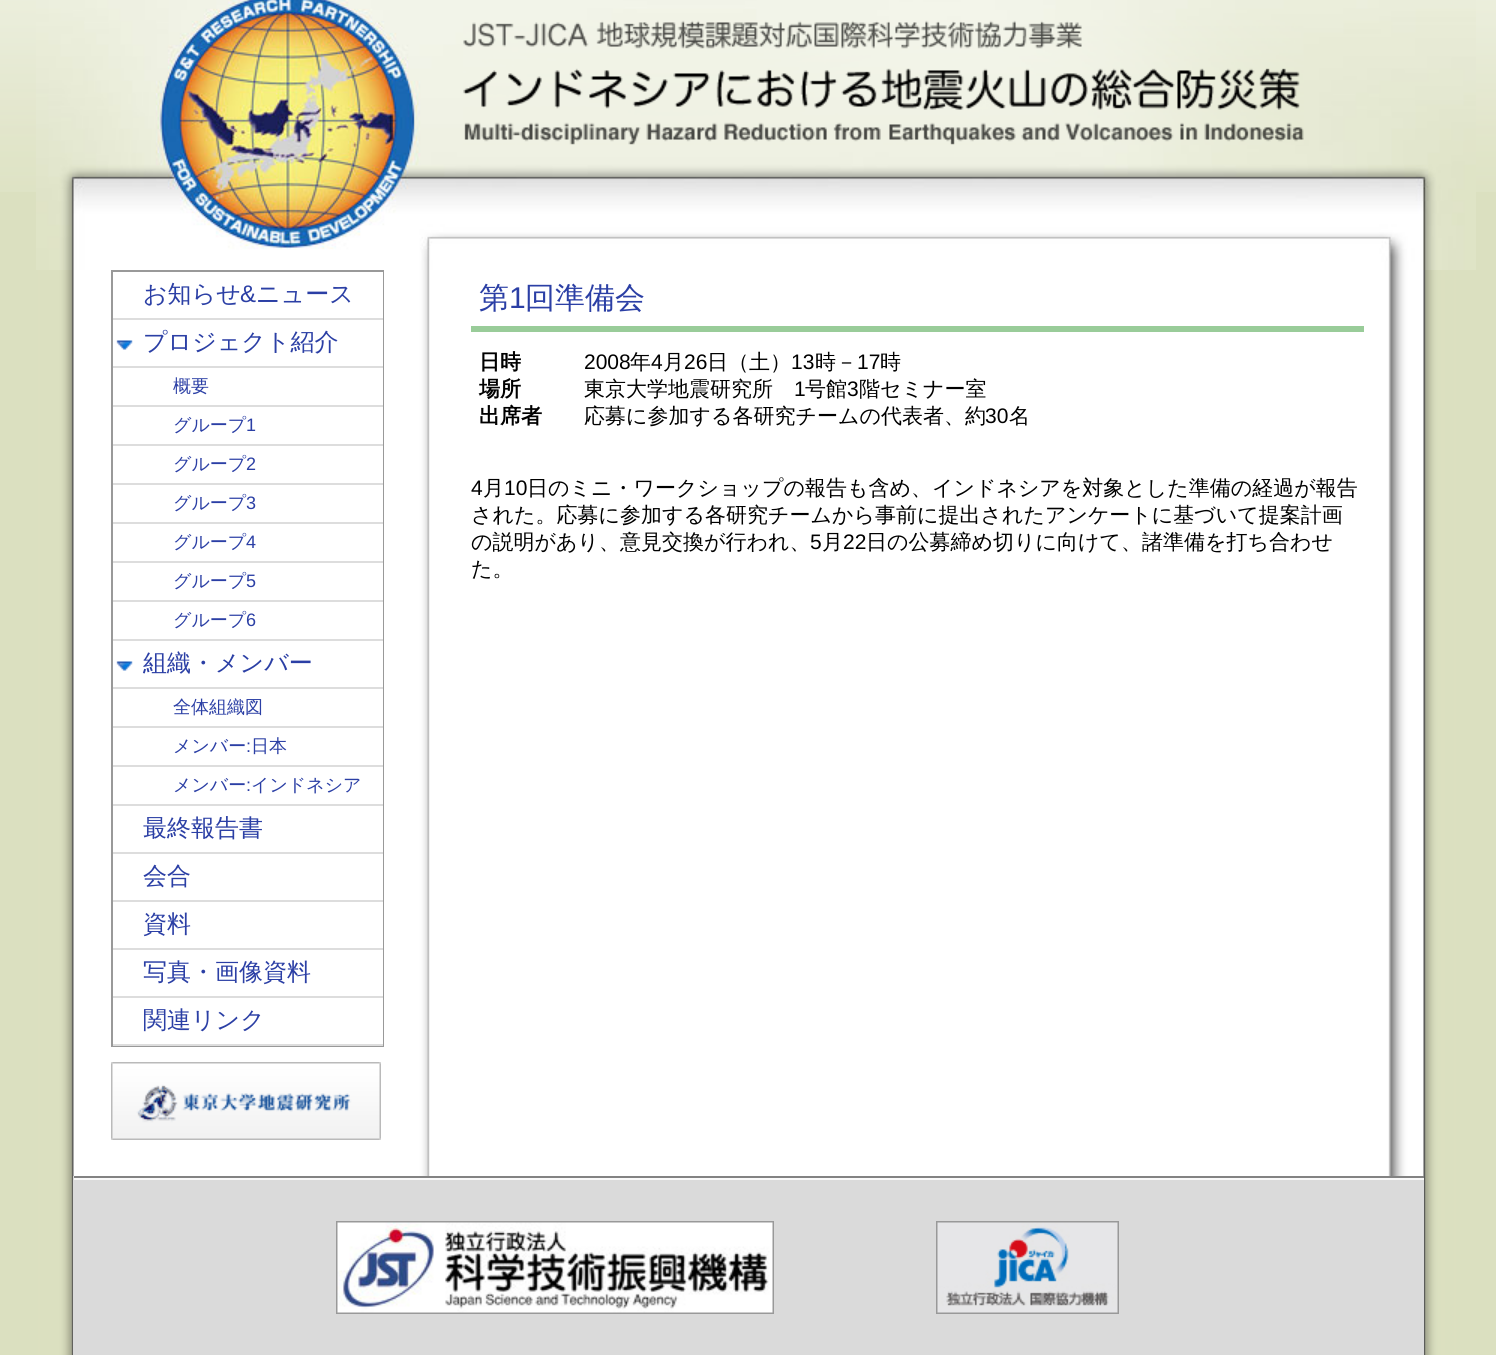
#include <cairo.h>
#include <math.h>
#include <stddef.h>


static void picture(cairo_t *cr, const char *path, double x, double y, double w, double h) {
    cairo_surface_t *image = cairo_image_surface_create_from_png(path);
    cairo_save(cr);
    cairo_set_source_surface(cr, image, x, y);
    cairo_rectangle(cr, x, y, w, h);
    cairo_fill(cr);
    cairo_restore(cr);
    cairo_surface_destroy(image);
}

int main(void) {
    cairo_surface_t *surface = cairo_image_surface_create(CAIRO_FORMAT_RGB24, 1496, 1355);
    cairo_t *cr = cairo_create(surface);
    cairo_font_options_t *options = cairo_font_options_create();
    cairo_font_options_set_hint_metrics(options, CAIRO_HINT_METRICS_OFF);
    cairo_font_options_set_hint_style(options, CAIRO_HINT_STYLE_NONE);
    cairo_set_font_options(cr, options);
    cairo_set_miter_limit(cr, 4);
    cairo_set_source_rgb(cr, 0.859, 0.878, 0.753);
    cairo_paint(cr);
    picture(cr, "img1.png", 0, 0, 1496, 192);
    picture(cr, "img2.png", 36, 270, 1425, 1085);
    picture(cr, "img3.png", 36, 0, 1440, 270);
    picture(cr, "img4.png", 463, 20, 841, 125);
    cairo_rectangle(cr, 112, 271, 271, 775);
    cairo_set_source_rgb(cr, 0.6, 0.6, 0.6);
    cairo_stroke(cr);
    cairo_set_source_rgb(cr, 1, 1, 1);
    cairo_rectangle(cr, 382, 272, 1, 46);
    cairo_fill(cr);
    cairo_set_source_rgb(cr, 0.867, 0.867, 0.867);
    cairo_rectangle(cr, 113, 318, 270, 2);
    cairo_fill(cr);
    cairo_select_font_face(cr, "WenQuanYi Zen Hei Medium", CAIRO_FONT_SLANT_NORMAL, CAIRO_FONT_WEIGHT_NORMAL);
    cairo_set_font_size(cr, 24);
    cairo_set_source_rgb(cr, 0.169, 0.247, 0.647);
    cairo_move_to(cr, 143, 302);
    cairo_show_text(cr, "お知らせ");
    cairo_select_font_face(cr, "Liberation Sans", CAIRO_FONT_SLANT_NORMAL, CAIRO_FONT_WEIGHT_NORMAL);
    cairo_move_to(cr, 240, 302);
    cairo_show_text(cr, "&");
    cairo_select_font_face(cr, "WenQuanYi Zen Hei Medium", CAIRO_FONT_SLANT_NORMAL, CAIRO_FONT_WEIGHT_NORMAL);
    cairo_move_to(cr, 256, 302);
    cairo_show_text(cr, "ニュース");
    cairo_set_source_rgb(cr, 1, 1, 1);
    cairo_rectangle(cr, 382, 320, 1, 46);
    cairo_fill(cr);
    cairo_set_source_rgb(cr, 0.867, 0.867, 0.867);
    cairo_rectangle(cr, 113, 639, 270, 2);
    cairo_fill(cr);
    picture(cr, "img5.png", 116, 340, 17, 10);
    cairo_set_source_rgb(cr, 0.169, 0.247, 0.647);
    cairo_move_to(cr, 143, 350);
    cairo_show_text(cr, "プロジェクト紹介");
    cairo_set_source_rgb(cr, 1, 1, 1);
    cairo_rectangle(cr, 382, 368, 1, 37);
    cairo_fill(cr);
    cairo_set_source_rgb(cr, 0.867, 0.867, 0.867);
    cairo_rectangle(cr, 113, 366, 270, 2);
    cairo_fill(cr);
    cairo_set_font_size(cr, 18);
    cairo_set_source_rgb(cr, 0.169, 0.247, 0.647);
    cairo_move_to(cr, 173, 392);
    cairo_show_text(cr, "概要");
    cairo_set_source_rgb(cr, 1, 1, 1);
    cairo_rectangle(cr, 382, 407, 1, 37);
    cairo_fill(cr);
    cairo_set_source_rgb(cr, 0.867, 0.867, 0.867);
    cairo_rectangle(cr, 113, 405, 270, 2);
    cairo_fill(cr);
    cairo_set_source_rgb(cr, 0.169, 0.247, 0.647);
    cairo_move_to(cr, 173, 431);
    cairo_show_text(cr, "グループ");
    cairo_select_font_face(cr, "Liberation Sans", CAIRO_FONT_SLANT_NORMAL, CAIRO_FONT_WEIGHT_NORMAL);
    cairo_move_to(cr, 246, 431);
    cairo_show_text(cr, "1");
    cairo_set_source_rgb(cr, 1, 1, 1);
    cairo_rectangle(cr, 382, 446, 1, 37);
    cairo_fill(cr);
    cairo_set_source_rgb(cr, 0.867, 0.867, 0.867);
    cairo_rectangle(cr, 113, 444, 270, 2);
    cairo_fill(cr);
    cairo_select_font_face(cr, "WenQuanYi Zen Hei Medium", CAIRO_FONT_SLANT_NORMAL, CAIRO_FONT_WEIGHT_NORMAL);
    cairo_set_source_rgb(cr, 0.169, 0.247, 0.647);
    cairo_move_to(cr, 173, 470);
    cairo_show_text(cr, "グループ");
    cairo_select_font_face(cr, "Liberation Sans", CAIRO_FONT_SLANT_NORMAL, CAIRO_FONT_WEIGHT_NORMAL);
    cairo_move_to(cr, 246, 470);
    cairo_show_text(cr, "2");
    cairo_set_source_rgb(cr, 1, 1, 1);
    cairo_rectangle(cr, 382, 485, 1, 37);
    cairo_fill(cr);
    cairo_set_source_rgb(cr, 0.867, 0.867, 0.867);
    cairo_rectangle(cr, 113, 483, 270, 2);
    cairo_fill(cr);
    cairo_select_font_face(cr, "WenQuanYi Zen Hei Medium", CAIRO_FONT_SLANT_NORMAL, CAIRO_FONT_WEIGHT_NORMAL);
    cairo_set_source_rgb(cr, 0.169, 0.247, 0.647);
    cairo_move_to(cr, 173, 509);
    cairo_show_text(cr, "グループ");
    cairo_select_font_face(cr, "Liberation Sans", CAIRO_FONT_SLANT_NORMAL, CAIRO_FONT_WEIGHT_NORMAL);
    cairo_move_to(cr, 246, 509);
    cairo_show_text(cr, "3");
    cairo_set_source_rgb(cr, 1, 1, 1);
    cairo_rectangle(cr, 382, 524, 1, 37);
    cairo_fill(cr);
    cairo_set_source_rgb(cr, 0.867, 0.867, 0.867);
    cairo_rectangle(cr, 113, 522, 270, 2);
    cairo_fill(cr);
    cairo_select_font_face(cr, "WenQuanYi Zen Hei Medium", CAIRO_FONT_SLANT_NORMAL, CAIRO_FONT_WEIGHT_NORMAL);
    cairo_set_source_rgb(cr, 0.169, 0.247, 0.647);
    cairo_move_to(cr, 173, 548);
    cairo_show_text(cr, "グループ");
    cairo_select_font_face(cr, "Liberation Sans", CAIRO_FONT_SLANT_NORMAL, CAIRO_FONT_WEIGHT_NORMAL);
    cairo_move_to(cr, 246, 548);
    cairo_show_text(cr, "4");
    cairo_set_source_rgb(cr, 1, 1, 1);
    cairo_rectangle(cr, 382, 563, 1, 37);
    cairo_fill(cr);
    cairo_set_source_rgb(cr, 0.867, 0.867, 0.867);
    cairo_rectangle(cr, 113, 561, 270, 2);
    cairo_fill(cr);
    cairo_select_font_face(cr, "WenQuanYi Zen Hei Medium", CAIRO_FONT_SLANT_NORMAL, CAIRO_FONT_WEIGHT_NORMAL);
    cairo_set_source_rgb(cr, 0.169, 0.247, 0.647);
    cairo_move_to(cr, 173, 587);
    cairo_show_text(cr, "グループ");
    cairo_select_font_face(cr, "Liberation Sans", CAIRO_FONT_SLANT_NORMAL, CAIRO_FONT_WEIGHT_NORMAL);
    cairo_move_to(cr, 246, 587);
    cairo_show_text(cr, "5");
    cairo_set_source_rgb(cr, 1, 1, 1);
    cairo_rectangle(cr, 382, 602, 1, 37);
    cairo_fill(cr);
    cairo_set_source_rgb(cr, 0.867, 0.867, 0.867);
    cairo_rectangle(cr, 113, 600, 270, 2);
    cairo_fill(cr);
    cairo_select_font_face(cr, "WenQuanYi Zen Hei Medium", CAIRO_FONT_SLANT_NORMAL, CAIRO_FONT_WEIGHT_NORMAL);
    cairo_set_source_rgb(cr, 0.169, 0.247, 0.647);
    cairo_move_to(cr, 173, 626);
    cairo_show_text(cr, "グループ");
    cairo_select_font_face(cr, "Liberation Sans", CAIRO_FONT_SLANT_NORMAL, CAIRO_FONT_WEIGHT_NORMAL);
    cairo_move_to(cr, 246, 626);
    cairo_show_text(cr, "6");
    cairo_set_source_rgb(cr, 1, 1, 1);
    cairo_rectangle(cr, 382, 641, 1, 46);
    cairo_fill(cr);
    cairo_set_source_rgb(cr, 0.867, 0.867, 0.867);
    cairo_rectangle(cr, 113, 804, 270, 2);
    cairo_fill(cr);
    picture(cr, "img5.png", 116, 661, 17, 10);
    cairo_select_font_face(cr, "WenQuanYi Zen Hei Medium", CAIRO_FONT_SLANT_NORMAL, CAIRO_FONT_WEIGHT_NORMAL);
    cairo_set_font_size(cr, 24);
    cairo_set_source_rgb(cr, 0.169, 0.247, 0.647);
    cairo_move_to(cr, 143, 671);
    cairo_show_text(cr, "組織・メンバー");
    cairo_set_source_rgb(cr, 1, 1, 1);
    cairo_rectangle(cr, 382, 689, 1, 37);
    cairo_fill(cr);
    cairo_set_source_rgb(cr, 0.867, 0.867, 0.867);
    cairo_rectangle(cr, 113, 687, 270, 2);
    cairo_fill(cr);
    cairo_set_font_size(cr, 18);
    cairo_set_source_rgb(cr, 0.169, 0.247, 0.647);
    cairo_move_to(cr, 173, 713);
    cairo_show_text(cr, "全体組織図");
    cairo_set_source_rgb(cr, 1, 1, 1);
    cairo_rectangle(cr, 382, 728, 1, 37);
    cairo_fill(cr);
    cairo_set_source_rgb(cr, 0.867, 0.867, 0.867);
    cairo_rectangle(cr, 113, 726, 270, 2);
    cairo_fill(cr);
    cairo_set_source_rgb(cr, 0.169, 0.247, 0.647);
    cairo_move_to(cr, 173, 752);
    cairo_show_text(cr, "メンバー");
    cairo_select_font_face(cr, "Liberation Sans", CAIRO_FONT_SLANT_NORMAL, CAIRO_FONT_WEIGHT_NORMAL);
    cairo_move_to(cr, 246, 752);
    cairo_show_text(cr, ":");
    cairo_select_font_face(cr, "WenQuanYi Zen Hei Medium", CAIRO_FONT_SLANT_NORMAL, CAIRO_FONT_WEIGHT_NORMAL);
    cairo_move_to(cr, 251, 752);
    cairo_show_text(cr, "日本");
    cairo_set_source_rgb(cr, 1, 1, 1);
    cairo_rectangle(cr, 382, 767, 1, 37);
    cairo_fill(cr);
    cairo_set_source_rgb(cr, 0.867, 0.867, 0.867);
    cairo_rectangle(cr, 113, 765, 270, 2);
    cairo_fill(cr);
    cairo_set_source_rgb(cr, 0.169, 0.247, 0.647);
    cairo_move_to(cr, 173, 791);
    cairo_show_text(cr, "メンバー");
    cairo_select_font_face(cr, "Liberation Sans", CAIRO_FONT_SLANT_NORMAL, CAIRO_FONT_WEIGHT_NORMAL);
    cairo_move_to(cr, 246, 791);
    cairo_show_text(cr, ":");
    cairo_select_font_face(cr, "WenQuanYi Zen Hei Medium", CAIRO_FONT_SLANT_NORMAL, CAIRO_FONT_WEIGHT_NORMAL);
    cairo_move_to(cr, 251, 791);
    cairo_show_text(cr, "インドネシア");
    cairo_set_source_rgb(cr, 1, 1, 1);
    cairo_rectangle(cr, 382, 806, 1, 46);
    cairo_fill(cr);
    cairo_set_source_rgb(cr, 0.867, 0.867, 0.867);
    cairo_rectangle(cr, 113, 852, 270, 2);
    cairo_fill(cr);
    cairo_set_font_size(cr, 24);
    cairo_set_source_rgb(cr, 0.169, 0.247, 0.647);
    cairo_move_to(cr, 143, 836);
    cairo_show_text(cr, "最終報告書");
    cairo_set_source_rgb(cr, 1, 1, 1);
    cairo_rectangle(cr, 382, 854, 1, 46);
    cairo_fill(cr);
    cairo_set_source_rgb(cr, 0.867, 0.867, 0.867);
    cairo_rectangle(cr, 113, 900, 270, 2);
    cairo_fill(cr);
    cairo_set_source_rgb(cr, 0.169, 0.247, 0.647);
    cairo_move_to(cr, 143, 884);
    cairo_show_text(cr, "会合");
    cairo_set_source_rgb(cr, 1, 1, 1);
    cairo_rectangle(cr, 382, 902, 1, 46);
    cairo_fill(cr);
    cairo_set_source_rgb(cr, 0.867, 0.867, 0.867);
    cairo_rectangle(cr, 113, 948, 270, 2);
    cairo_fill(cr);
    cairo_set_source_rgb(cr, 0.169, 0.247, 0.647);
    cairo_move_to(cr, 143, 932);
    cairo_show_text(cr, "資料");
    cairo_set_source_rgb(cr, 1, 1, 1);
    cairo_rectangle(cr, 382, 950, 1, 46);
    cairo_fill(cr);
    cairo_set_source_rgb(cr, 0.867, 0.867, 0.867);
    cairo_rectangle(cr, 113, 996, 270, 2);
    cairo_fill(cr);
    cairo_set_source_rgb(cr, 0.169, 0.247, 0.647);
    cairo_move_to(cr, 143, 980);
    cairo_show_text(cr, "写真・画像資料");
    cairo_set_source_rgb(cr, 1, 1, 1);
    cairo_rectangle(cr, 382, 998, 1, 46);
    cairo_fill(cr);
    cairo_set_source_rgb(cr, 0.867, 0.867, 0.867);
    cairo_rectangle(cr, 113, 1044, 270, 2);
    cairo_fill(cr);
    cairo_set_source_rgb(cr, 0.169, 0.247, 0.647);
    cairo_move_to(cr, 143, 1028);
    cairo_show_text(cr, "関連リンク");
    picture(cr, "img6.png", 111, 1062, 270, 78);
    cairo_set_source_rgb(cr, 0.6, 0.8, 0.6);
    cairo_rectangle(cr, 471, 326, 893, 6);
    cairo_fill(cr);
    cairo_set_font_size(cr, 30);
    cairo_set_source_rgb(cr, 0.169, 0.247, 0.647);
    cairo_move_to(cr, 479, 308);
    cairo_show_text(cr, "第");
    cairo_select_font_face(cr, "Liberation Sans", CAIRO_FONT_SLANT_NORMAL, CAIRO_FONT_WEIGHT_NORMAL);
    cairo_move_to(cr, 509, 308);
    cairo_show_text(cr, "1");
    cairo_select_font_face(cr, "WenQuanYi Zen Hei Medium", CAIRO_FONT_SLANT_NORMAL, CAIRO_FONT_WEIGHT_NORMAL);
    cairo_move_to(cr, 525, 308);
    cairo_show_text(cr, "回準備会");
    cairo_select_font_face(cr, "WenQuanYi Zen Hei", CAIRO_FONT_SLANT_NORMAL, CAIRO_FONT_WEIGHT_BOLD);
    cairo_set_font_size(cr, 21);
    cairo_set_source_rgb(cr, 0, 0, 0);
    cairo_move_to(cr, 479, 369);
    cairo_show_text(cr, "日時");
    cairo_select_font_face(cr, "Liberation Sans", CAIRO_FONT_SLANT_NORMAL, CAIRO_FONT_WEIGHT_NORMAL);
    cairo_move_to(cr, 584, 369);
    cairo_show_text(cr, "2008");
    cairo_select_font_face(cr, "WenQuanYi Zen Hei Medium", CAIRO_FONT_SLANT_NORMAL, CAIRO_FONT_WEIGHT_NORMAL);
    cairo_move_to(cr, 630, 369);
    cairo_show_text(cr, "年");
    cairo_select_font_face(cr, "Liberation Sans", CAIRO_FONT_SLANT_NORMAL, CAIRO_FONT_WEIGHT_NORMAL);
    cairo_move_to(cr, 651, 369);
    cairo_show_text(cr, "4");
    cairo_select_font_face(cr, "WenQuanYi Zen Hei Medium", CAIRO_FONT_SLANT_NORMAL, CAIRO_FONT_WEIGHT_NORMAL);
    cairo_move_to(cr, 663, 369);
    cairo_show_text(cr, "月");
    cairo_select_font_face(cr, "Liberation Sans", CAIRO_FONT_SLANT_NORMAL, CAIRO_FONT_WEIGHT_NORMAL);
    cairo_move_to(cr, 684, 369);
    cairo_show_text(cr, "26");
    cairo_select_font_face(cr, "WenQuanYi Zen Hei Medium", CAIRO_FONT_SLANT_NORMAL, CAIRO_FONT_WEIGHT_NORMAL);
    cairo_move_to(cr, 707, 369);
    cairo_show_text(cr, "日（土）");
    cairo_select_font_face(cr, "Liberation Sans", CAIRO_FONT_SLANT_NORMAL, CAIRO_FONT_WEIGHT_NORMAL);
    cairo_move_to(cr, 791, 369);
    cairo_show_text(cr, "13");
    cairo_select_font_face(cr, "WenQuanYi Zen Hei Medium", CAIRO_FONT_SLANT_NORMAL, CAIRO_FONT_WEIGHT_NORMAL);
    cairo_move_to(cr, 815, 369);
    cairo_show_text(cr, "時－");
    cairo_select_font_face(cr, "Liberation Sans", CAIRO_FONT_SLANT_NORMAL, CAIRO_FONT_WEIGHT_NORMAL);
    cairo_move_to(cr, 857, 369);
    cairo_show_text(cr, "17");
    cairo_select_font_face(cr, "WenQuanYi Zen Hei Medium", CAIRO_FONT_SLANT_NORMAL, CAIRO_FONT_WEIGHT_NORMAL);
    cairo_move_to(cr, 880, 369);
    cairo_show_text(cr, "時");
    cairo_select_font_face(cr, "WenQuanYi Zen Hei", CAIRO_FONT_SLANT_NORMAL, CAIRO_FONT_WEIGHT_BOLD);
    cairo_move_to(cr, 479, 396);
    cairo_show_text(cr, "場所");
    cairo_select_font_face(cr, "WenQuanYi Zen Hei Medium", CAIRO_FONT_SLANT_NORMAL, CAIRO_FONT_WEIGHT_NORMAL);
    cairo_move_to(cr, 584, 396);
    cairo_show_text(cr, "東京大学地震研究所");
    cairo_select_font_face(cr, "Liberation Sans", CAIRO_FONT_SLANT_NORMAL, CAIRO_FONT_WEIGHT_NORMAL);
    cairo_move_to(cr, 794, 396);
    cairo_show_text(cr, "1");
    cairo_select_font_face(cr, "WenQuanYi Zen Hei Medium", CAIRO_FONT_SLANT_NORMAL, CAIRO_FONT_WEIGHT_NORMAL);
    cairo_move_to(cr, 805, 396);
    cairo_show_text(cr, "号館");
    cairo_select_font_face(cr, "Liberation Sans", CAIRO_FONT_SLANT_NORMAL, CAIRO_FONT_WEIGHT_NORMAL);
    cairo_move_to(cr, 847, 396);
    cairo_show_text(cr, "3");
    cairo_select_font_face(cr, "WenQuanYi Zen Hei Medium", CAIRO_FONT_SLANT_NORMAL, CAIRO_FONT_WEIGHT_NORMAL);
    cairo_move_to(cr, 859, 396);
    cairo_show_text(cr, "階セミナー室");
    cairo_select_font_face(cr, "WenQuanYi Zen Hei", CAIRO_FONT_SLANT_NORMAL, CAIRO_FONT_WEIGHT_BOLD);
    cairo_move_to(cr, 479, 423);
    cairo_show_text(cr, "出席者");
    cairo_select_font_face(cr, "WenQuanYi Zen Hei Medium", CAIRO_FONT_SLANT_NORMAL, CAIRO_FONT_WEIGHT_NORMAL);
    cairo_move_to(cr, 584, 423);
    cairo_show_text(cr, "応募に参加する各研究チームの代表者、約");
    cairo_select_font_face(cr, "Liberation Sans", CAIRO_FONT_SLANT_NORMAL, CAIRO_FONT_WEIGHT_NORMAL);
    cairo_move_to(cr, 985, 423);
    cairo_show_text(cr, "30");
    cairo_select_font_face(cr, "WenQuanYi Zen Hei Medium", CAIRO_FONT_SLANT_NORMAL, CAIRO_FONT_WEIGHT_NORMAL);
    cairo_move_to(cr, 1009, 423);
    cairo_show_text(cr, "名");
    cairo_select_font_face(cr, "Liberation Sans", CAIRO_FONT_SLANT_NORMAL, CAIRO_FONT_WEIGHT_NORMAL);
    cairo_move_to(cr, 471, 495);
    cairo_show_text(cr, "4");
    cairo_select_font_face(cr, "WenQuanYi Zen Hei Medium", CAIRO_FONT_SLANT_NORMAL, CAIRO_FONT_WEIGHT_NORMAL);
    cairo_move_to(cr, 483, 495);
    cairo_show_text(cr, "月");
    cairo_select_font_face(cr, "Liberation Sans", CAIRO_FONT_SLANT_NORMAL, CAIRO_FONT_WEIGHT_NORMAL);
    cairo_move_to(cr, 504, 495);
    cairo_show_text(cr, "10");
    cairo_select_font_face(cr, "WenQuanYi Zen Hei Medium", CAIRO_FONT_SLANT_NORMAL, CAIRO_FONT_WEIGHT_NORMAL);
    cairo_move_to(cr, 527, 495);
    cairo_show_text(cr, "日のミニ・ワークショップの報告も含め、インドネシアを対象とした準備の経過が報告");
    cairo_move_to(cr, 471, 522);
    cairo_show_text(cr, "された。応募に参加する各研究チームから事前に提出されたアンケートに基づいて提案計画");
    cairo_move_to(cr, 471, 549);
    cairo_show_text(cr, "の説明があり、意見交換が行われ、");
    cairo_select_font_face(cr, "Liberation Sans", CAIRO_FONT_SLANT_NORMAL, CAIRO_FONT_WEIGHT_NORMAL);
    cairo_move_to(cr, 810, 549);
    cairo_show_text(cr, "5");
    cairo_select_font_face(cr, "WenQuanYi Zen Hei Medium", CAIRO_FONT_SLANT_NORMAL, CAIRO_FONT_WEIGHT_NORMAL);
    cairo_move_to(cr, 822, 549);
    cairo_show_text(cr, "月");
    cairo_select_font_face(cr, "Liberation Sans", CAIRO_FONT_SLANT_NORMAL, CAIRO_FONT_WEIGHT_NORMAL);
    cairo_move_to(cr, 843, 549);
    cairo_show_text(cr, "22");
    cairo_select_font_face(cr, "WenQuanYi Zen Hei Medium", CAIRO_FONT_SLANT_NORMAL, CAIRO_FONT_WEIGHT_NORMAL);
    cairo_move_to(cr, 866, 549);
    cairo_show_text(cr, "日の公募締め切りに向けて、諸準備を打ち合わせ");
    cairo_move_to(cr, 471, 576);
    cairo_show_text(cr, "た。");
    cairo_set_source_rgb(cr, 0.855, 0.855, 0.855);
    cairo_rectangle(cr, 73, 1176, 1351, 179);
    cairo_fill(cr);
    cairo_set_source_rgb(cr, 0.514, 0.514, 0.514);
    cairo_rectangle(cr, 74, 1176, 1350, 2);
    cairo_fill(cr);
    cairo_set_source_rgb(cr, 0.98, 0.98, 0.98);
    cairo_rectangle(cr, 74, 1178, 1350, 2);
    cairo_fill(cr);
    cairo_rectangle(cr, 337, 1222, 436, 91);
    cairo_set_source_rgb(cr, 0.6, 0.6, 0.6);
    cairo_stroke(cr);
    picture(cr, "img7.png", 337, 1222, 436, 91);
    cairo_rectangle(cr, 937, 1222, 181, 91);
    cairo_stroke(cr);
    picture(cr, "img8.png", 937, 1222, 181, 91);
    cairo_surface_write_to_png(surface, "page.png");
    cairo_font_options_destroy(options);
    cairo_destroy(cr);
    cairo_surface_destroy(surface);
    return 0;
}
